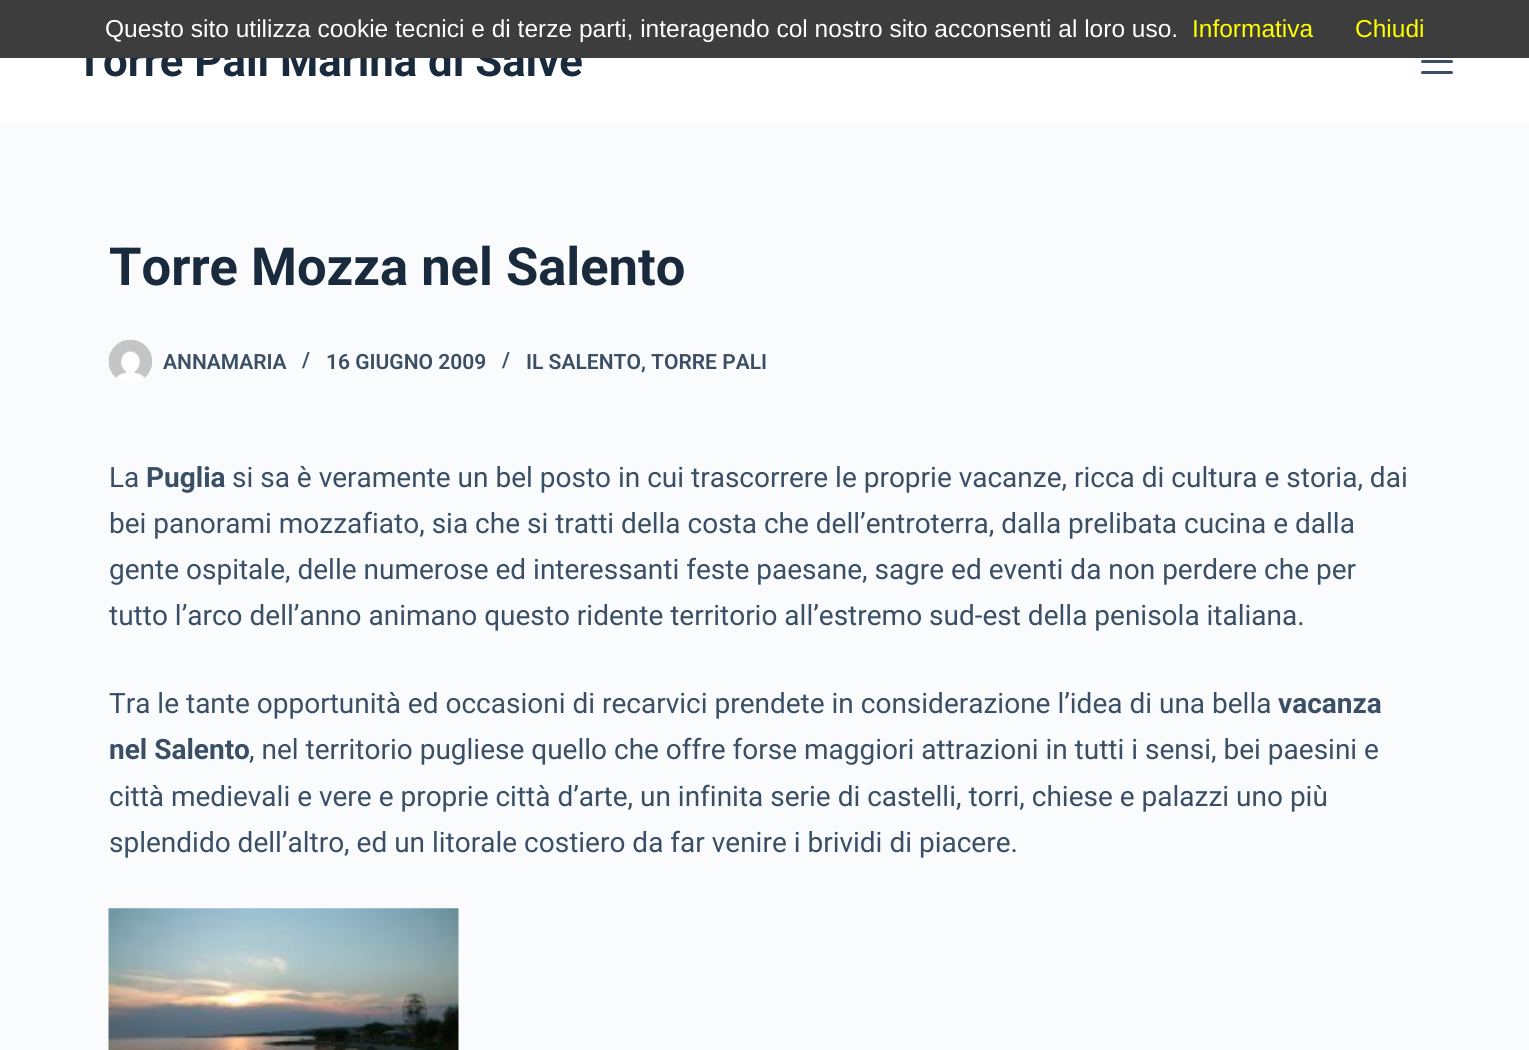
#include <cairo.h>
#include <math.h>
#include <stddef.h>


static void round_rect(cairo_t *cr, double x, double y, double w, double h, double r) {
    cairo_new_sub_path(cr);
    cairo_arc(cr, x + w - r, y + h - r, r, 0, M_PI / 2);
    cairo_arc(cr, x + r, y + h - r, r, M_PI / 2, M_PI);
    cairo_arc(cr, x + r, y + r, r, M_PI, 1.5 * M_PI);
    cairo_arc(cr, x + w - r, y + r, r, 1.5 * M_PI, 2 * M_PI);
    cairo_close_path(cr);
}

static void picture(cairo_t *cr, const char *path, double x, double y, double w, double h) {
    cairo_surface_t *image = cairo_image_surface_create_from_png(path);
    cairo_save(cr);
    cairo_set_source_surface(cr, image, x, y);
    cairo_rectangle(cr, x, y, w, h);
    cairo_fill(cr);
    cairo_restore(cr);
    cairo_surface_destroy(image);
}

int main(void) {
    cairo_surface_t *surface = cairo_image_surface_create(CAIRO_FORMAT_RGB24, 1529, 1050);
    cairo_t *cr = cairo_create(surface);
    cairo_font_options_t *options = cairo_font_options_create();
    cairo_font_options_set_hint_metrics(options, CAIRO_HINT_METRICS_OFF);
    cairo_font_options_set_hint_style(options, CAIRO_HINT_STYLE_NONE);
    cairo_set_font_options(cr, options);
    cairo_set_miter_limit(cr, 4);
    cairo_set_source_rgb(cr, 0.98, 0.984, 0.988);
    cairo_paint(cr);
    cairo_set_source_rgb(cr, 1, 1, 1);
    cairo_rectangle(cr, 0, 58, 1529, 65);
    cairo_fill(cr);
    cairo_select_font_face(cr, "Roboto", CAIRO_FONT_SLANT_NORMAL, CAIRO_FONT_WEIGHT_BOLD);
    cairo_set_font_size(cr, 43.75);
    cairo_set_source_rgb(cr, 0.098, 0.165, 0.239);
    cairo_move_to(cr, 76, 76);
    cairo_show_text(cr, "Torre Pali Marina di Salve");
    cairo_set_source_rgb(cr, 0.239, 0.239, 0.239);
    cairo_rectangle(cr, 0, 0, 1529, 58);
    cairo_fill(cr);
    cairo_select_font_face(cr, "Liberation Sans", CAIRO_FONT_SLANT_NORMAL, CAIRO_FONT_WEIGHT_NORMAL);
    cairo_set_font_size(cr, 24.5);
    cairo_set_source_rgb(cr, 1, 1, 1);
    cairo_move_to(cr, 105, 37);
    cairo_show_text(cr, "Questo sito utilizza cookie tecnici e di terze parti, interagendo col nostro sito acconsenti al loro uso.");
    cairo_set_source_rgb(cr, 1, 1, 0);
    cairo_move_to(cr, 1192, 37);
    cairo_show_text(cr, "Informativa");
    cairo_move_to(cr, 1355, 37);
    cairo_show_text(cr, "Chiudi");
    cairo_set_source_rgb(cr, 0.227, 0.31, 0.4);
    round_rect(cr, 1421, 60, 32, 3, 1.5);
    cairo_fill(cr);
    round_rect(cr, 1421, 71, 32, 3, 1.5);
    cairo_fill(cr);
    cairo_select_font_face(cr, "Roboto", CAIRO_FONT_SLANT_NORMAL, CAIRO_FONT_WEIGHT_BOLD);
    cairo_set_font_size(cr, 52.5);
    cairo_set_source_rgb(cr, 0.098, 0.165, 0.239);
    cairo_move_to(cr, 109, 285);
    cairo_show_text(cr, "Torre Mozza nel Salento");
    picture(cr, "img1.png", 108, 339, 44, 44);
    cairo_select_font_face(cr, "Roboto SemiBold", CAIRO_FONT_SLANT_NORMAL, CAIRO_FONT_WEIGHT_NORMAL);
    cairo_set_font_size(cr, 21);
    cairo_set_source_rgb(cr, 0.227, 0.31, 0.4);
    cairo_move_to(cr, 163, 369);
    cairo_show_text(cr, "ANNAMARIA");
    cairo_move_to(cr, 302, 367);
    cairo_show_text(cr, "/");
    cairo_move_to(cr, 326, 369);
    cairo_show_text(cr, "16 GIUGNO 2009");
    cairo_move_to(cr, 502, 367);
    cairo_show_text(cr, "/");
    cairo_move_to(cr, 526, 369);
    cairo_show_text(cr, "IL SALENTO, TORRE PALI");
    cairo_select_font_face(cr, "Roboto", CAIRO_FONT_SLANT_NORMAL, CAIRO_FONT_WEIGHT_NORMAL);
    cairo_set_font_size(cr, 28);
    cairo_move_to(cr, 109, 487);
    cairo_show_text(cr, "La");
    cairo_select_font_face(cr, "Roboto", CAIRO_FONT_SLANT_NORMAL, CAIRO_FONT_WEIGHT_BOLD);
    cairo_move_to(cr, 146, 487);
    cairo_show_text(cr, "Puglia");
    cairo_select_font_face(cr, "Roboto", CAIRO_FONT_SLANT_NORMAL, CAIRO_FONT_WEIGHT_NORMAL);
    cairo_move_to(cr, 232, 487);
    cairo_show_text(cr, "si sa è veramente un bel posto in cui trascorrere le proprie vacanze, ricca di cultura e storia, dai");
    cairo_move_to(cr, 109, 533);
    cairo_show_text(cr, "bei panorami mozzafiato, sia che si tratti della costa che dell’entroterra, dalla prelibata cucina e dalla");
    cairo_move_to(cr, 109, 579);
    cairo_show_text(cr, "gente ospitale, delle numerose ed interessanti feste paesane, sagre ed eventi da non perdere che per");
    cairo_move_to(cr, 109, 625);
    cairo_show_text(cr, "tutto l’arco dell’anno animano questo ridente territorio all’estremo sud-est della penisola italiana.");
    cairo_move_to(cr, 109, 713);
    cairo_show_text(cr, "Tra le tante opportunità ed occasioni di recarvici prendete in considerazione l’idea di una bella");
    cairo_select_font_face(cr, "Roboto", CAIRO_FONT_SLANT_NORMAL, CAIRO_FONT_WEIGHT_BOLD);
    cairo_move_to(cr, 1278, 713);
    cairo_show_text(cr, "vacanza");
    cairo_move_to(cr, 109, 759);
    cairo_show_text(cr, "nel Salento");
    cairo_select_font_face(cr, "Roboto", CAIRO_FONT_SLANT_NORMAL, CAIRO_FONT_WEIGHT_NORMAL);
    cairo_move_to(cr, 249, 759);
    cairo_show_text(cr, ", nel territorio pugliese quello che offre forse maggiori attrazioni in tutti i sensi, bei paesini e");
    cairo_move_to(cr, 109, 806);
    cairo_show_text(cr, "città medievali e vere e proprie città d’arte, un infinita serie di castelli, torri, chiese e palazzi uno più");
    cairo_move_to(cr, 109, 852);
    cairo_show_text(cr, "splendido dell’altro, ed un litorale costiero da far venire i brividi di piacere.");
    picture(cr, "img2.png", 108, 908, 351, 142);
    cairo_surface_write_to_png(surface, "page.png");
    cairo_font_options_destroy(options);
    cairo_destroy(cr);
    cairo_surface_destroy(surface);
    return 0;
}
